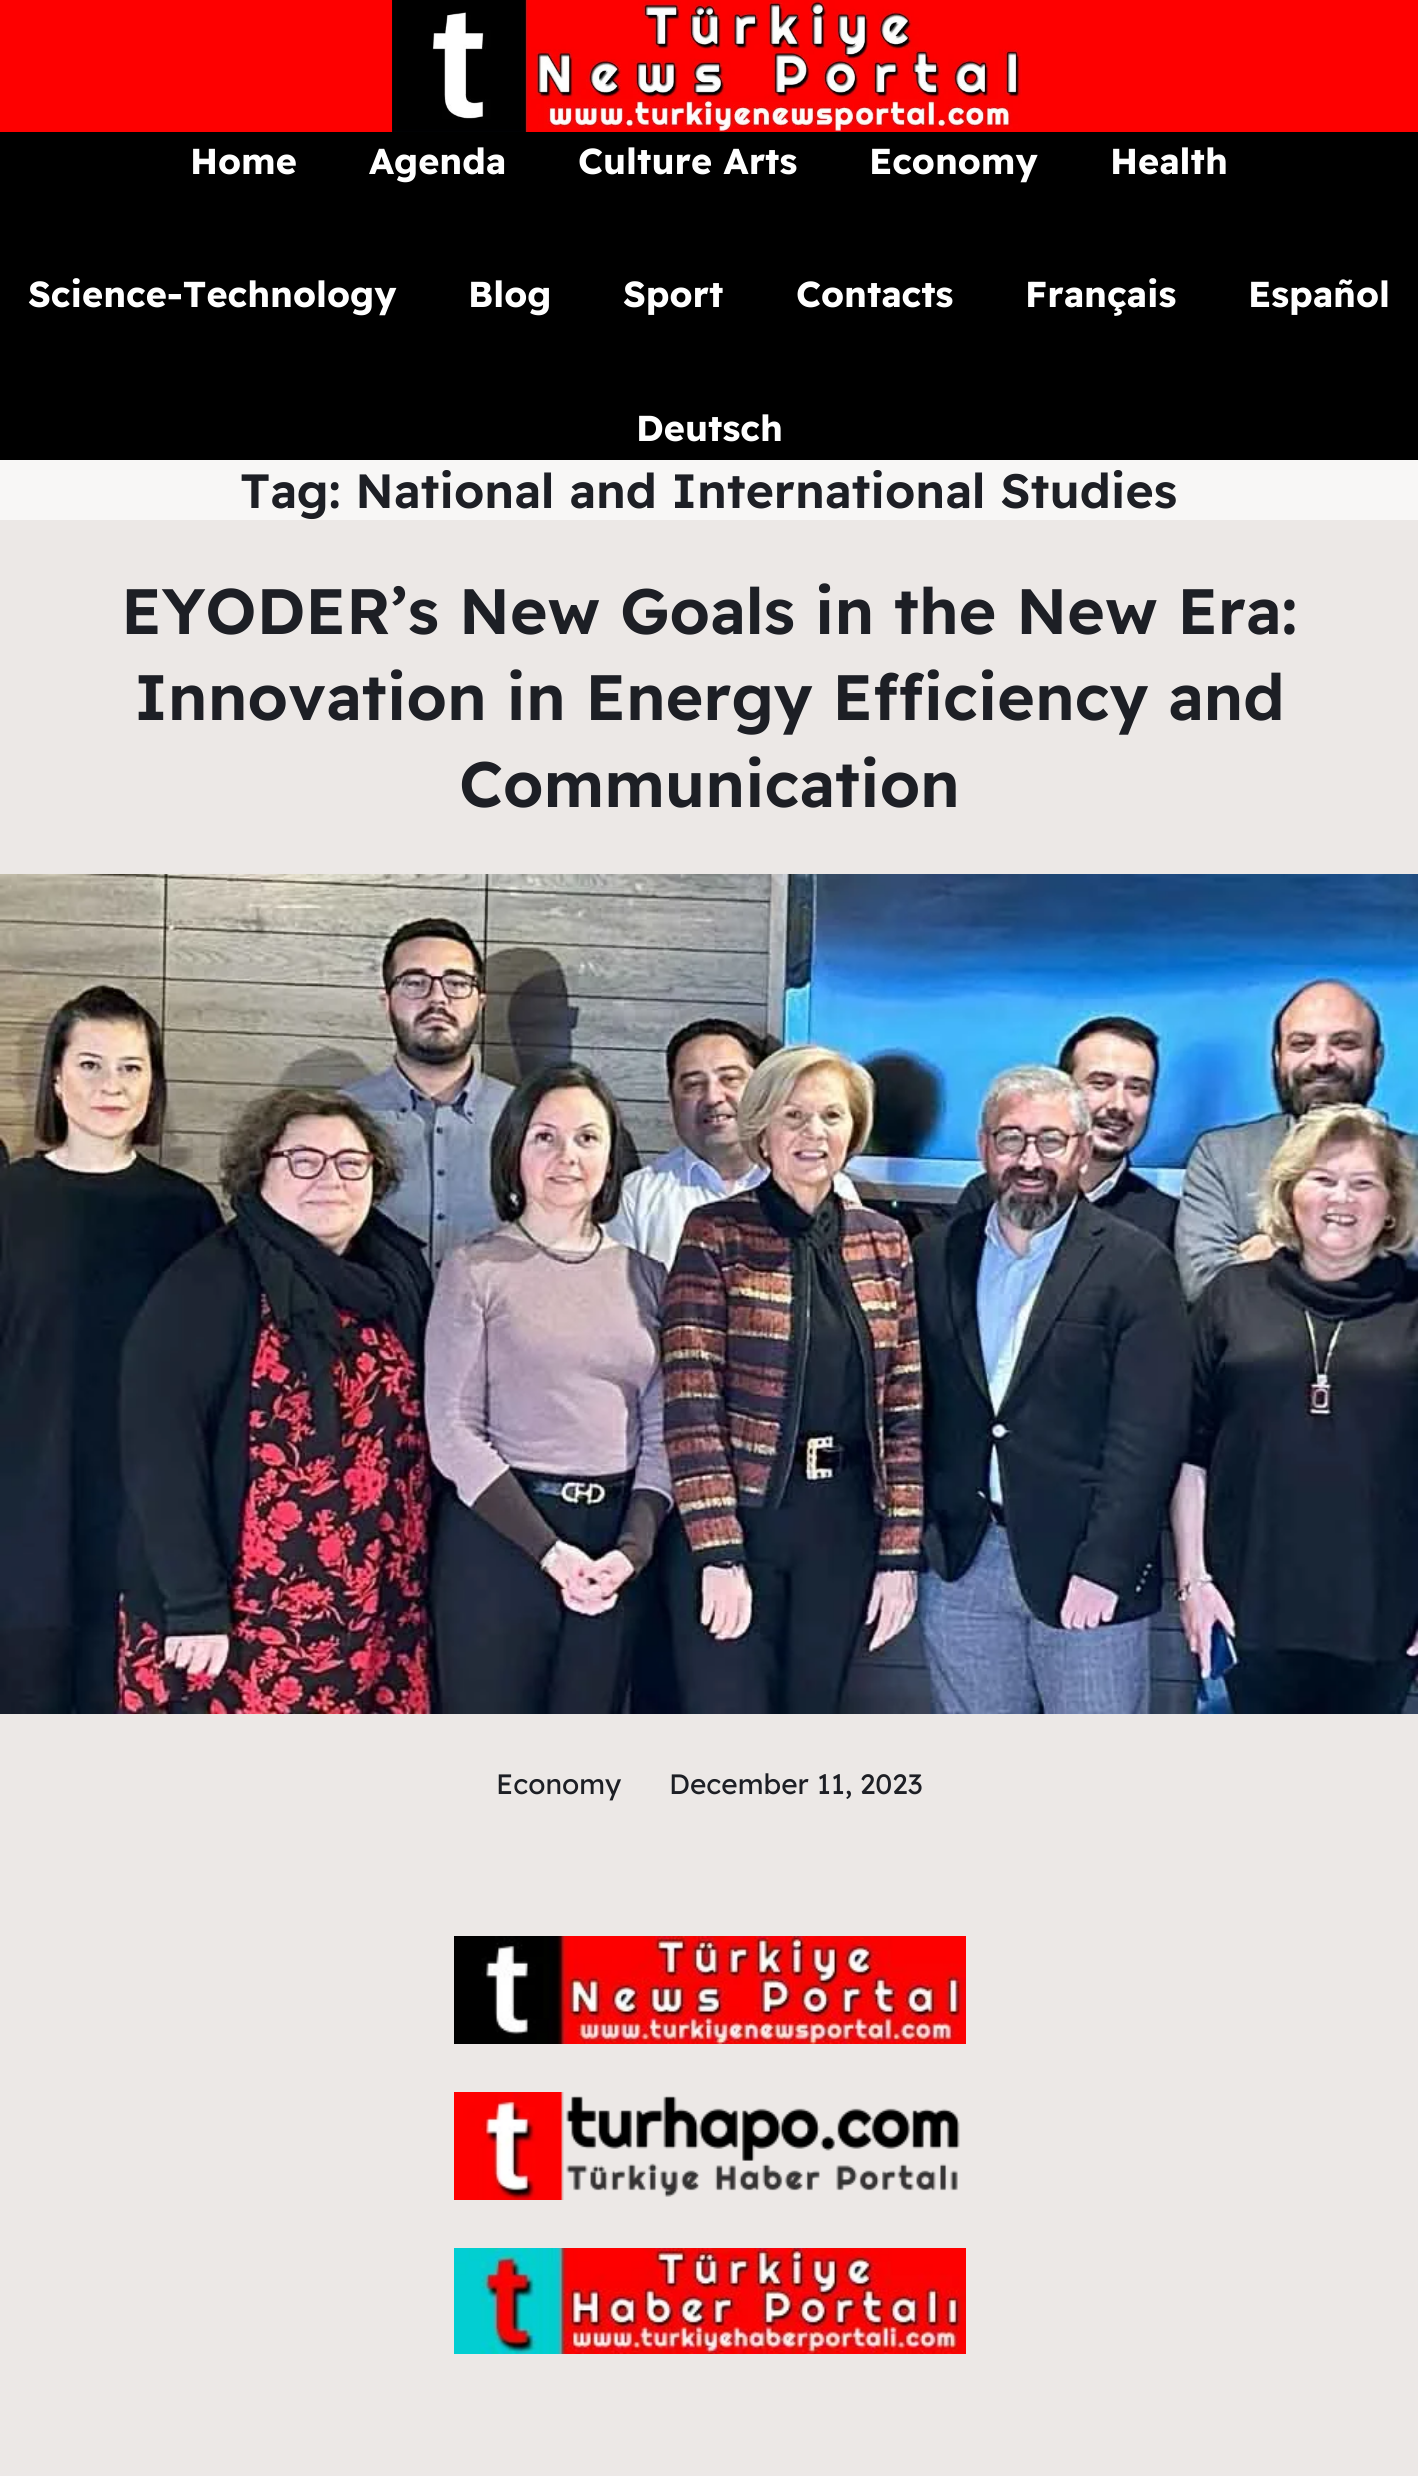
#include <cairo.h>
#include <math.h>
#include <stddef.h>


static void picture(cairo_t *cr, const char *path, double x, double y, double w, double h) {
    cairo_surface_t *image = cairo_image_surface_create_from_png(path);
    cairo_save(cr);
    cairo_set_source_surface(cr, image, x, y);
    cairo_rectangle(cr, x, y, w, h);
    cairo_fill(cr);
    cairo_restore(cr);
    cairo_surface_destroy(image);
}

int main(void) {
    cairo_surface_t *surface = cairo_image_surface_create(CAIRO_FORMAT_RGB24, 1418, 2476);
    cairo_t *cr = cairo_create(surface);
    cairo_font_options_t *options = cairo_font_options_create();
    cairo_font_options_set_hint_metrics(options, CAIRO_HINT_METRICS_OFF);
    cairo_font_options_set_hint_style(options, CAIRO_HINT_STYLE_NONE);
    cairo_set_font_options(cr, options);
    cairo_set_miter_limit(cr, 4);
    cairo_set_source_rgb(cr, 0.922, 0.91, 0.902);
    cairo_paint(cr);
    cairo_set_source_rgb(cr, 0.996, 0, 0);
    cairo_rectangle(cr, 0, 0, 1418, 132);
    cairo_fill(cr);
    picture(cr, "img1.png", 392, 0, 630, 132);
    cairo_set_source_rgb(cr, 0, 0, 0);
    cairo_rectangle(cr, 0, 132, 1418, 328);
    cairo_fill(cr);
    cairo_select_font_face(cr, "Readex Pro", CAIRO_FONT_SLANT_NORMAL, CAIRO_FONT_WEIGHT_BOLD);
    cairo_set_font_size(cr, 36);
    cairo_set_source_rgb(cr, 1, 1, 1);
    cairo_move_to(cr, 190, 174);
    cairo_show_text(cr, "Home");
    cairo_move_to(cr, 369, 174);
    cairo_show_text(cr, "Agenda");
    cairo_move_to(cr, 578, 174);
    cairo_show_text(cr, "Culture Arts");
    cairo_move_to(cr, 869, 174);
    cairo_show_text(cr, "Economy");
    cairo_move_to(cr, 1110, 174);
    cairo_show_text(cr, "Health");
    cairo_move_to(cr, 28, 307);
    cairo_show_text(cr, "Science-Technology");
    cairo_move_to(cr, 468, 307);
    cairo_show_text(cr, "Blog");
    cairo_move_to(cr, 623, 307);
    cairo_show_text(cr, "Sport");
    cairo_move_to(cr, 796, 307);
    cairo_show_text(cr, "Contacts");
    cairo_move_to(cr, 1025, 307);
    cairo_show_text(cr, "Français");
    cairo_move_to(cr, 1248, 307);
    cairo_show_text(cr, "Español");
    cairo_move_to(cr, 636, 441);
    cairo_show_text(cr, "Deutsch");
    cairo_set_source_rgb(cr, 0.969, 0.965, 0.961);
    cairo_rectangle(cr, 0, 460, 1418, 60);
    cairo_fill(cr);
    cairo_select_font_face(cr, "Readex Pro SemiBold", CAIRO_FONT_SLANT_NORMAL, CAIRO_FONT_WEIGHT_NORMAL);
    cairo_set_font_size(cr, 48);
    cairo_set_source_rgb(cr, 0.114, 0.122, 0.145);
    cairo_move_to(cr, 240, 508);
    cairo_show_text(cr, "Tag: National and International Studies");
    cairo_set_font_size(cr, 64);
    cairo_move_to(cr, 121, 634);
    cairo_show_text(cr, "EYODER’s New Goals in the New Era:");
    cairo_move_to(cr, 134, 720);
    cairo_show_text(cr, "Innovation in Energy Efficiency and");
    cairo_move_to(cr, 459, 807);
    cairo_show_text(cr, "Communication");
    picture(cr, "img2.png", 0, 874, 1418, 840);
    cairo_select_font_face(cr, "Readex Pro", CAIRO_FONT_SLANT_NORMAL, CAIRO_FONT_WEIGHT_NORMAL);
    cairo_set_font_size(cr, 28);
    cairo_move_to(cr, 496, 1794);
    cairo_show_text(cr, "Economy");
    cairo_move_to(cr, 669, 1794);
    cairo_show_text(cr, "December 11, 2023");
    picture(cr, "img3.png", 454, 1936, 512, 108);
    picture(cr, "img4.png", 454, 2092, 506, 108);
    picture(cr, "img5.png", 454, 2248, 512, 106);
    cairo_surface_write_to_png(surface, "page.png");
    cairo_font_options_destroy(options);
    cairo_destroy(cr);
    cairo_surface_destroy(surface);
    return 0;
}
